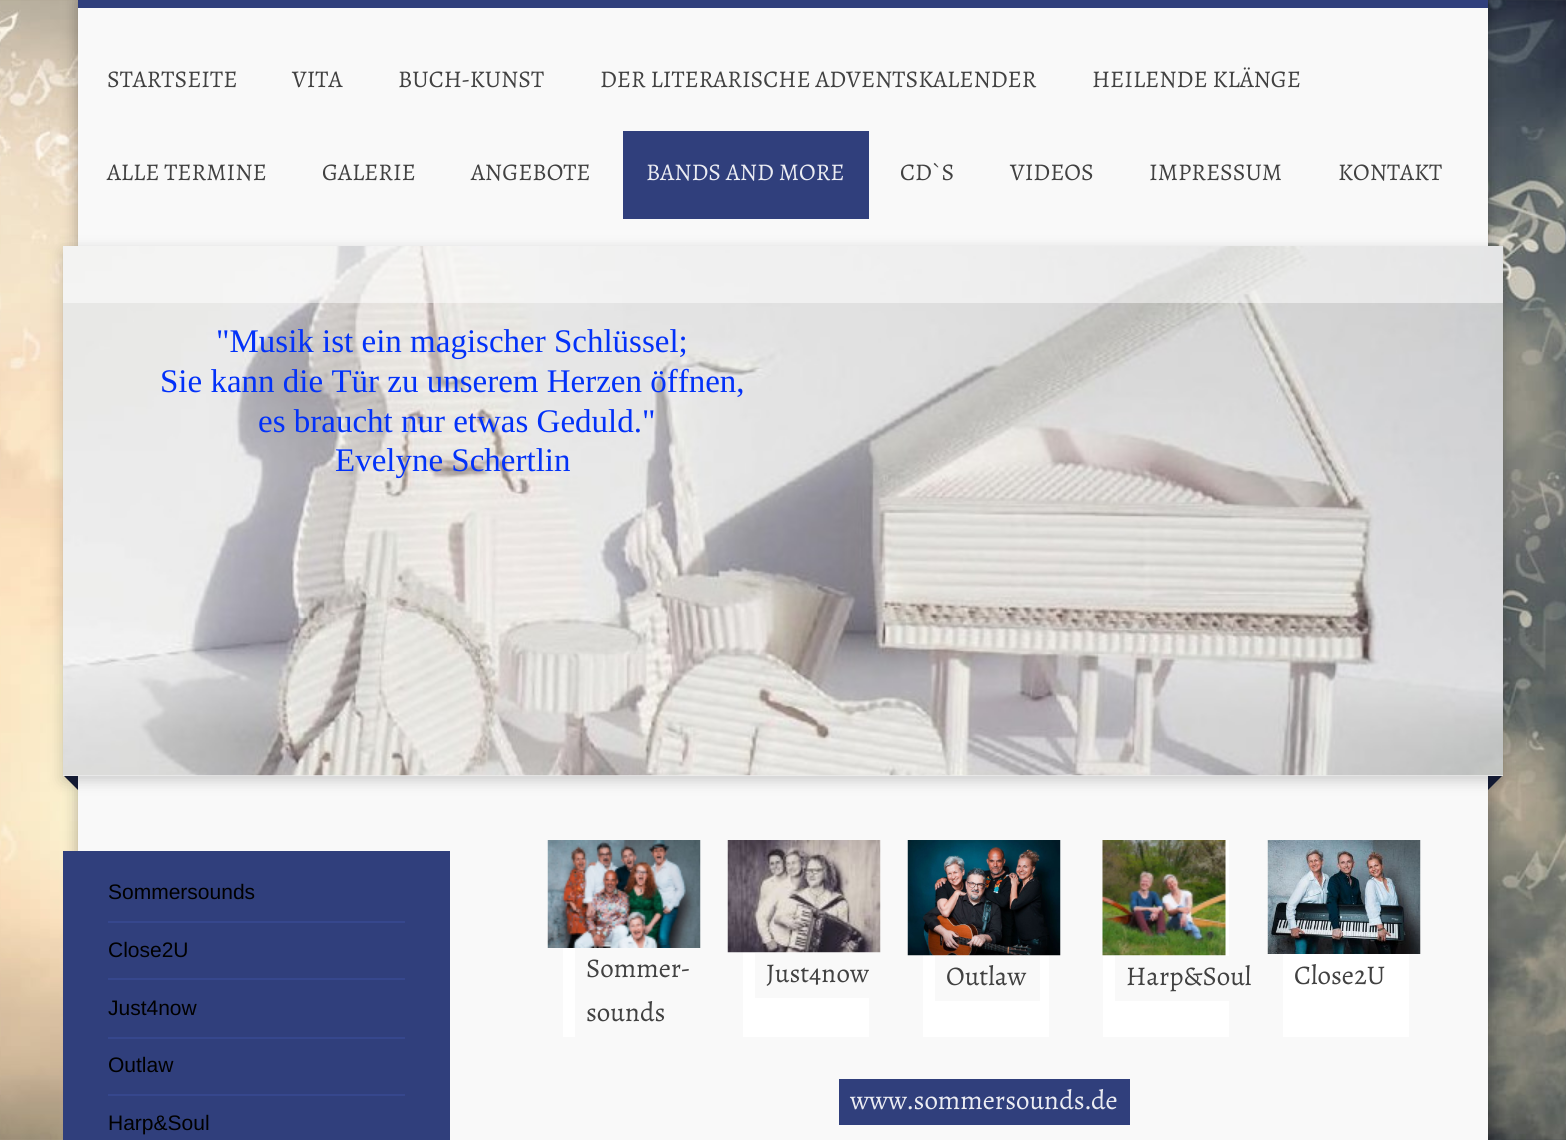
#include <cairo.h>
#include <math.h>
#include <stddef.h>


static void round_rect(cairo_t *cr, double x, double y, double w, double h, double r) {
    cairo_new_sub_path(cr);
    cairo_arc(cr, x + w - r, y + h - r, r, 0, M_PI / 2);
    cairo_arc(cr, x + r, y + h - r, r, M_PI / 2, M_PI);
    cairo_arc(cr, x + r, y + r, r, M_PI, 1.5 * M_PI);
    cairo_arc(cr, x + w - r, y + r, r, 1.5 * M_PI, 2 * M_PI);
    cairo_close_path(cr);
}

static void shadow(cairo_t *cr, double x, double y, double w, double h, double r, double blur, double alpha) {
    cairo_push_group_with_content(cr, CAIRO_CONTENT_ALPHA);
    cairo_set_operator(cr, CAIRO_OPERATOR_SOURCE);
    for (int i = 15; i >= -15 && fmin(w, h) + blur * i / 3 > 0; i -= 2) {
        double e = blur * i / 6;
        cairo_set_source_rgba(cr, 0, 0, 0, alpha * erfc((i - 1) / 8.5) / 2);
        round_rect(cr, x - e, y - e, w + 2 * e, h + 2 * e, fmax(0, fmin(r + e + blur * .6, fmin(w, h) / 2 + e)));
        cairo_fill(cr);
    }
    cairo_pattern_t *soft = cairo_pop_group(cr);
    cairo_mask(cr, soft);
    cairo_pattern_destroy(soft);
}

static void picture(cairo_t *cr, const char *path, double x, double y, double w, double h) {
    cairo_surface_t *image = cairo_image_surface_create_from_png(path);
    cairo_save(cr);
    cairo_set_source_surface(cr, image, x, y);
    cairo_rectangle(cr, x, y, w, h);
    cairo_fill(cr);
    cairo_restore(cr);
    cairo_surface_destroy(image);
}

int main(void) {
    cairo_surface_t *surface = cairo_image_surface_create(CAIRO_FORMAT_RGB24, 1566, 1140);
    cairo_t *cr = cairo_create(surface);
    cairo_font_options_t *options = cairo_font_options_create();
    cairo_font_options_set_hint_metrics(options, CAIRO_HINT_METRICS_OFF);
    cairo_font_options_set_hint_style(options, CAIRO_HINT_STYLE_NONE);
    cairo_set_font_options(cr, options);
    cairo_set_miter_limit(cr, 4);
    cairo_set_source_rgb(cr, 1, 1, 1);
    cairo_paint(cr);
    picture(cr, "img1.png", 0, 0, 1566, 1140);
    cairo_set_source_rgb(cr, 0, 0, 0);
    shadow(cr, 78, 0, 1410, 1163, 0, 7.5, 0.3);
    cairo_set_source_rgb(cr, 0.976, 0.976, 0.976);
    cairo_rectangle(cr, 78, 8, 1410, 1132);
    cairo_fill(cr);
    cairo_set_source_rgb(cr, 0.188, 0.247, 0.486);
    cairo_rectangle(cr, 78, 0, 1410, 8);
    cairo_fill(cr);
    cairo_select_font_face(cr, "Alegreya", CAIRO_FONT_SLANT_NORMAL, CAIRO_FONT_WEIGHT_NORMAL);
    cairo_set_font_size(cr, 24);
    cairo_set_source_rgb(cr, 0.255, 0.255, 0.255);
    cairo_move_to(cr, 107, 87);
    cairo_show_text(cr, "STARTSEITE");
    cairo_move_to(cr, 292, 87);
    cairo_show_text(cr, "VITA");
    cairo_move_to(cr, 398, 87);
    cairo_show_text(cr, "BUCH-KUNST");
    cairo_move_to(cr, 600, 87);
    cairo_show_text(cr, "DER LITERARISCHE ADVENTSKALENDER");
    cairo_move_to(cr, 1092, 87);
    cairo_show_text(cr, "HEILENDE KLÄNGE");
    cairo_move_to(cr, 107, 180);
    cairo_show_text(cr, "ALLE TERMINE");
    cairo_move_to(cr, 322, 180);
    cairo_show_text(cr, "GALERIE");
    cairo_move_to(cr, 471, 180);
    cairo_show_text(cr, "ANGEBOTE");
    cairo_set_source_rgb(cr, 0.188, 0.247, 0.486);
    cairo_rectangle(cr, 623, 131, 246, 88);
    cairo_fill(cr);
    cairo_set_source_rgb(cr, 0.918, 0.925, 0.949);
    cairo_move_to(cr, 646, 180);
    cairo_show_text(cr, "BANDS AND MORE");
    cairo_set_source_rgb(cr, 0.255, 0.255, 0.255);
    cairo_move_to(cr, 900, 180);
    cairo_show_text(cr, "CD`S");
    cairo_move_to(cr, 1010, 180);
    cairo_show_text(cr, "VIDEOS");
    cairo_move_to(cr, 1149, 180);
    cairo_show_text(cr, "IMPRESSUM");
    cairo_move_to(cr, 1338, 180);
    cairo_show_text(cr, "KONTAKT");
    cairo_set_source_rgb(cr, 0, 0, 0);
    shadow(cr, 63, 251, 1440, 529, 0, 7.5, 0.2);
    cairo_set_source_rgb(cr, 0.078, 0.102, 0.196);
    cairo_new_path(cr);
    cairo_move_to(cr, 78, 760);
    cairo_line_to(cr, 78, 790);
    cairo_line_to(cr, 63, 775);
    cairo_close_path(cr);
    cairo_fill(cr);
    cairo_new_path(cr);
    cairo_move_to(cr, 1488, 790);
    cairo_line_to(cr, 1488, 760);
    cairo_line_to(cr, 1503, 775);
    cairo_close_path(cr);
    cairo_fill(cr);
    cairo_set_source_rgb(cr, 0.925, 0.925, 0.925);
    cairo_rectangle(cr, 63, 775, 1440, 1);
    cairo_fill(cr);
    picture(cr, "img2.png", 63, 246, 1440, 530);
    cairo_set_source_rgba(cr, 1, 1, 1, 0.5);
    cairo_rectangle(cr, 63, 246, 1440, 57);
    cairo_fill(cr);
    cairo_select_font_face(cr, "Liberation Serif", CAIRO_FONT_SLANT_NORMAL, CAIRO_FONT_WEIGHT_NORMAL);
    cairo_set_font_size(cr, 33);
    cairo_set_source_rgb(cr, 0.008, 0.192, 0.976);
    cairo_move_to(cr, 216, 352);
    cairo_show_text(cr, "\"Musik ist ein magischer Schlüssel;");
    cairo_move_to(cr, 160, 392);
    cairo_show_text(cr, "Sie kann die Tür zu unserem Herzen öffnen,");
    cairo_move_to(cr, 258, 432);
    cairo_show_text(cr, "es braucht nur etwas Geduld.\"");
    cairo_move_to(cr, 335, 471);
    cairo_show_text(cr, "Evelyne Schertlin");
    cairo_set_source_rgb(cr, 0.188, 0.247, 0.486);
    cairo_rectangle(cr, 63, 851, 387, 289);
    cairo_fill(cr);
    cairo_set_source_rgb(cr, 0.212, 0.278, 0.553);
    cairo_rectangle(cr, 108, 921, 297, 2);
    cairo_fill(cr);
    cairo_select_font_face(cr, "Liberation Sans", CAIRO_FONT_SLANT_NORMAL, CAIRO_FONT_WEIGHT_NORMAL);
    cairo_set_font_size(cr, 21);
    cairo_set_source_rgb(cr, 0, 0, 0);
    cairo_move_to(cr, 108, 899);
    cairo_show_text(cr, "Sommersounds");
    cairo_set_source_rgb(cr, 0.212, 0.278, 0.553);
    cairo_rectangle(cr, 108, 978, 297, 2);
    cairo_fill(cr);
    cairo_set_source_rgb(cr, 0, 0, 0);
    cairo_move_to(cr, 108, 957);
    cairo_show_text(cr, "Close2U");
    cairo_set_source_rgb(cr, 0.212, 0.278, 0.553);
    cairo_rectangle(cr, 108, 1037, 297, 2);
    cairo_fill(cr);
    cairo_set_source_rgb(cr, 0, 0, 0);
    cairo_move_to(cr, 108, 1015);
    cairo_show_text(cr, "Just4now");
    cairo_set_source_rgb(cr, 0.212, 0.278, 0.553);
    cairo_rectangle(cr, 108, 1094, 297, 2);
    cairo_fill(cr);
    cairo_set_source_rgb(cr, 0, 0, 0);
    cairo_move_to(cr, 108, 1072);
    cairo_show_text(cr, "Outlaw");
    cairo_move_to(cr, 108, 1130);
    cairo_show_text(cr, "Harp&Soul");
    cairo_set_source_rgb(cr, 1, 1, 1);
    cairo_rectangle(cr, 563, 948, 12, 89);
    cairo_fill(cr);
    picture(cr, "img3.png", 547, 840, 154, 108);
    cairo_select_font_face(cr, "Alegreya", CAIRO_FONT_SLANT_NORMAL, CAIRO_FONT_WEIGHT_NORMAL);
    cairo_set_font_size(cr, 27);
    cairo_set_source_rgb(cr, 0.255, 0.255, 0.255);
    cairo_move_to(cr, 586, 977);
    cairo_show_text(cr, "Sommer-");
    cairo_move_to(cr, 586, 1021);
    cairo_show_text(cr, "sounds");
    cairo_set_source_rgb(cr, 1, 1, 1);
    cairo_rectangle(cr, 743, 952, 126, 85);
    cairo_fill(cr);
    picture(cr, "img4.png", 727, 840, 154, 113);
    cairo_set_source_rgb(cr, 0.976, 0.976, 0.976);
    cairo_rectangle(cr, 755, 953, 114, 45);
    cairo_fill(cr);
    cairo_set_source_rgb(cr, 0.255, 0.255, 0.255);
    cairo_move_to(cr, 766, 982);
    cairo_show_text(cr, "Just4now");
    cairo_set_source_rgb(cr, 1, 1, 1);
    cairo_rectangle(cr, 923, 955, 126, 82);
    cairo_fill(cr);
    picture(cr, "img5.png", 907, 840, 154, 116);
    cairo_set_source_rgb(cr, 0.976, 0.976, 0.976);
    cairo_rectangle(cr, 935, 956, 105, 45);
    cairo_fill(cr);
    cairo_set_source_rgb(cr, 0.255, 0.255, 0.255);
    cairo_move_to(cr, 946, 985);
    cairo_show_text(cr, "Outlaw");
    cairo_set_source_rgb(cr, 1, 1, 1);
    cairo_rectangle(cr, 1103, 840, 126, 197);
    cairo_fill(cr);
    picture(cr, "img6.png", 1102, 840, 124, 116);
    cairo_set_source_rgb(cr, 0.976, 0.976, 0.976);
    cairo_rectangle(cr, 1115, 956, 114, 45);
    cairo_fill(cr);
    cairo_set_source_rgb(cr, 0.255, 0.255, 0.255);
    cairo_move_to(cr, 1126, 985);
    cairo_show_text(cr, "Harp&Soul");
    cairo_set_source_rgb(cr, 1, 1, 1);
    cairo_rectangle(cr, 1283, 954, 126, 83);
    cairo_fill(cr);
    picture(cr, "img7.png", 1267, 840, 154, 114);
    cairo_set_source_rgb(cr, 0.255, 0.255, 0.255);
    cairo_move_to(cr, 1294, 984);
    cairo_show_text(cr, "Close2U");
    cairo_set_source_rgb(cr, 0.188, 0.247, 0.486);
    cairo_rectangle(cr, 839, 1079, 291, 46);
    cairo_fill(cr);
    cairo_set_source_rgb(cr, 0.918, 0.925, 0.949);
    cairo_move_to(cr, 850, 1109);
    cairo_show_text(cr, "www.sommersounds.de");
    cairo_surface_write_to_png(surface, "page.png");
    cairo_font_options_destroy(options);
    cairo_destroy(cr);
    cairo_surface_destroy(surface);
    return 0;
}
